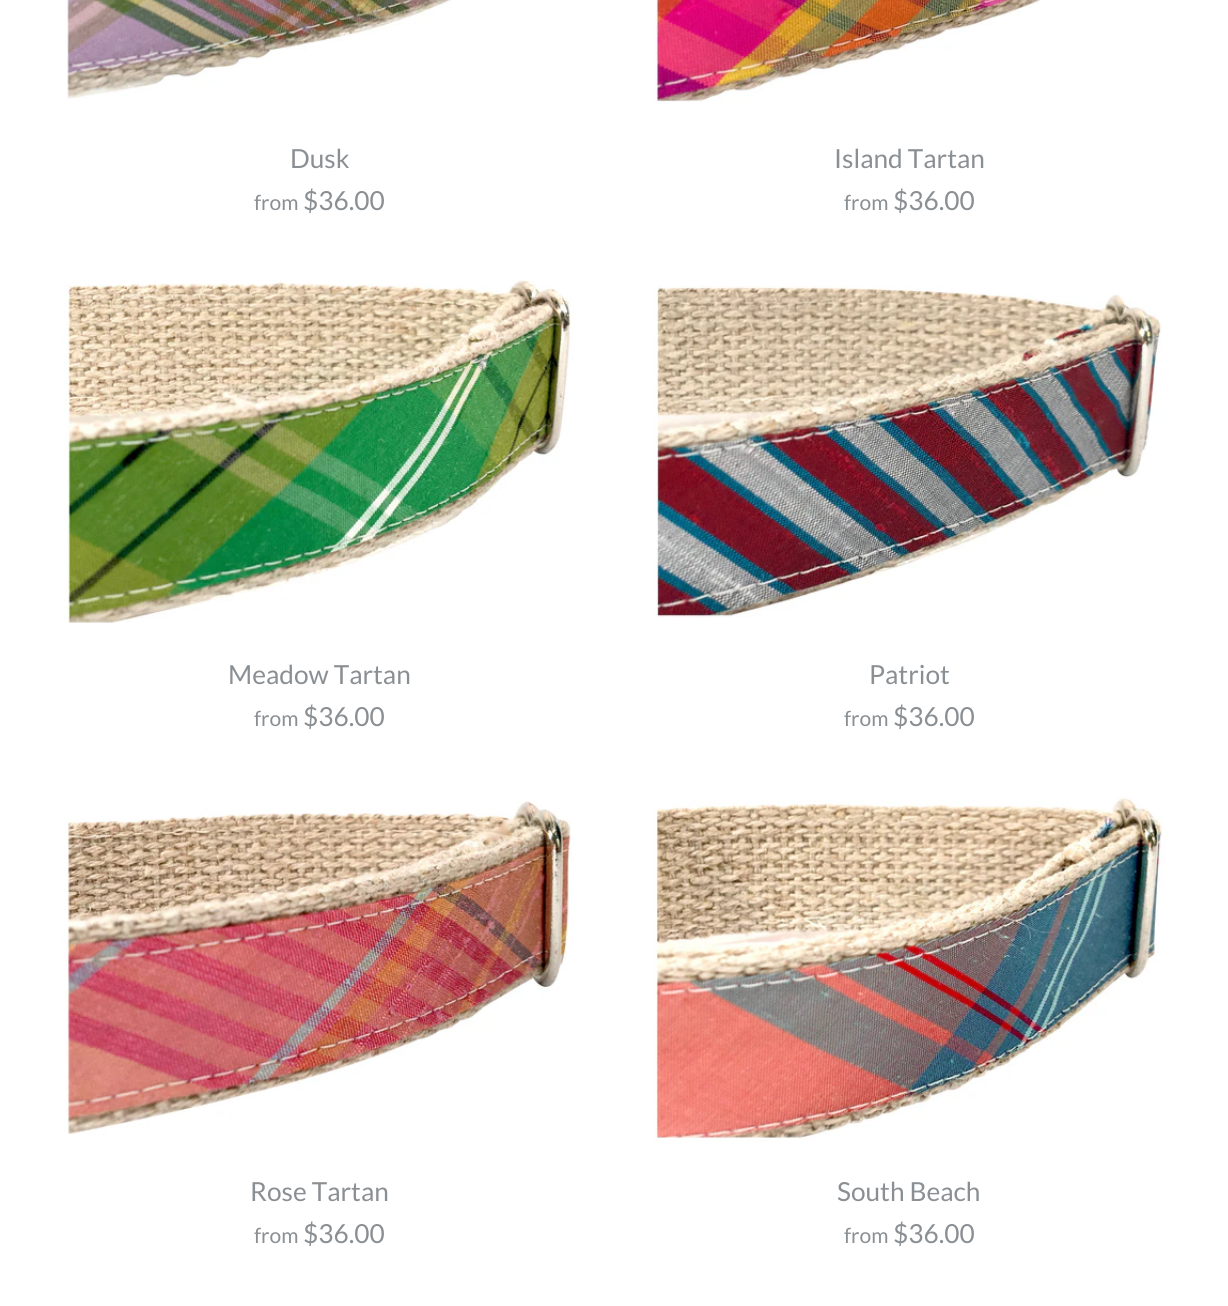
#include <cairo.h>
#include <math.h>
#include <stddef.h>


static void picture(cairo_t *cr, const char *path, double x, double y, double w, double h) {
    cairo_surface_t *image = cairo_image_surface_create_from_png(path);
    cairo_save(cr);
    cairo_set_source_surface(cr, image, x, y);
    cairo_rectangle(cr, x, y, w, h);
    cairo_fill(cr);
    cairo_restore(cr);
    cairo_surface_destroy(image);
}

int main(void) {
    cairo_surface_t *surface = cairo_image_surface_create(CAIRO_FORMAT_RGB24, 1228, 1306);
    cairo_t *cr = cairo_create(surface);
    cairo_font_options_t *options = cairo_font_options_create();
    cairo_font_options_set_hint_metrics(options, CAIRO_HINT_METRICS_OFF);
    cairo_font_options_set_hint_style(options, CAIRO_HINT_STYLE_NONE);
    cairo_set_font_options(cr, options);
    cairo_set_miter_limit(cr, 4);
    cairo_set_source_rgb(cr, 1, 1, 1);
    cairo_paint(cr);
    picture(cr, "img1.png", 67, 0, 385, 99);
    cairo_select_font_face(cr, "Lato", CAIRO_FONT_SLANT_NORMAL, CAIRO_FONT_WEIGHT_NORMAL);
    cairo_set_font_size(cr, 26.25);
    cairo_set_source_rgb(cr, 0.541, 0.561, 0.576);
    cairo_move_to(cr, 290, 168);
    cairo_show_text(cr, "Dusk");
    cairo_set_font_size(cr, 21);
    cairo_move_to(cr, 254, 210);
    cairo_show_text(cr, "from");
    cairo_set_font_size(cr, 26.25);
    cairo_move_to(cr, 303, 210);
    cairo_show_text(cr, "$36.00");
    picture(cr, "img2.png", 653, 0, 388, 102);
    cairo_move_to(cr, 834, 168);
    cairo_show_text(cr, "Island Tartan");
    cairo_set_font_size(cr, 21);
    cairo_move_to(cr, 844, 210);
    cairo_show_text(cr, "from");
    cairo_set_font_size(cr, 26.25);
    cairo_move_to(cr, 893, 210);
    cairo_show_text(cr, "$36.00");
    picture(cr, "img3.png", 63, 280, 511, 343);
    cairo_move_to(cr, 228, 684);
    cairo_show_text(cr, "Meadow Tartan");
    cairo_set_font_size(cr, 21);
    cairo_move_to(cr, 254, 726);
    cairo_show_text(cr, "from");
    cairo_set_font_size(cr, 26.25);
    cairo_move_to(cr, 303, 726);
    cairo_show_text(cr, "$36.00");
    picture(cr, "img4.png", 653, 285, 510, 333);
    cairo_move_to(cr, 869, 684);
    cairo_show_text(cr, "Patriot");
    cairo_set_font_size(cr, 21);
    cairo_move_to(cr, 844, 726);
    cairo_show_text(cr, "from");
    cairo_set_font_size(cr, 26.25);
    cairo_move_to(cr, 893, 726);
    cairo_show_text(cr, "$36.00");
    picture(cr, "img5.png", 63, 801, 511, 334);
    cairo_move_to(cr, 250, 1201);
    cairo_show_text(cr, "Rose Tartan");
    cairo_set_font_size(cr, 21);
    cairo_move_to(cr, 254, 1243);
    cairo_show_text(cr, "from");
    cairo_set_font_size(cr, 26.25);
    cairo_move_to(cr, 303, 1243);
    cairo_show_text(cr, "$36.00");
    picture(cr, "img6.png", 653, 796, 512, 346);
    cairo_move_to(cr, 837, 1201);
    cairo_show_text(cr, "South Beach");
    cairo_set_font_size(cr, 21);
    cairo_move_to(cr, 844, 1243);
    cairo_show_text(cr, "from");
    cairo_set_font_size(cr, 26.25);
    cairo_move_to(cr, 893, 1243);
    cairo_show_text(cr, "$36.00");
    cairo_surface_write_to_png(surface, "page.png");
    cairo_font_options_destroy(options);
    cairo_destroy(cr);
    cairo_surface_destroy(surface);
    return 0;
}
